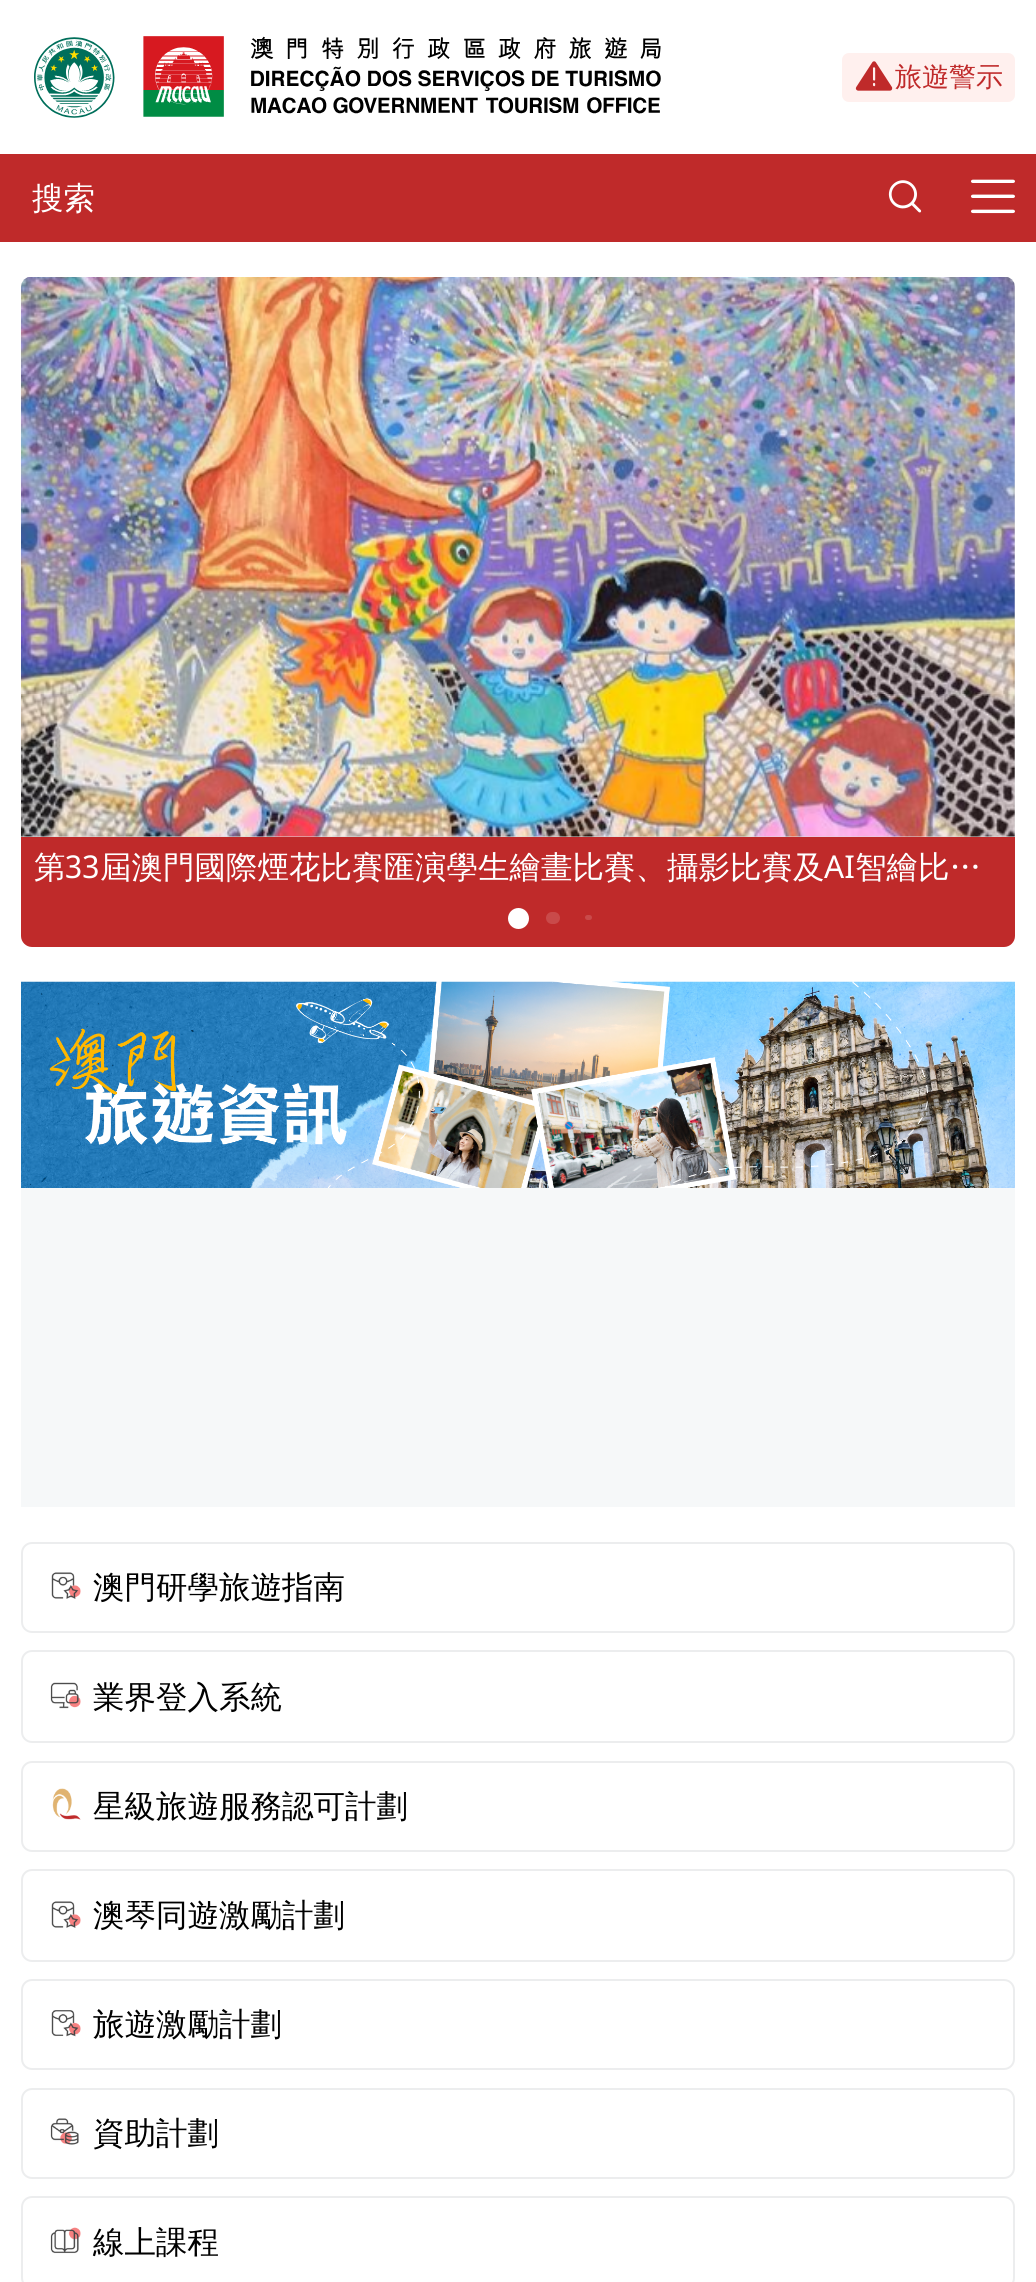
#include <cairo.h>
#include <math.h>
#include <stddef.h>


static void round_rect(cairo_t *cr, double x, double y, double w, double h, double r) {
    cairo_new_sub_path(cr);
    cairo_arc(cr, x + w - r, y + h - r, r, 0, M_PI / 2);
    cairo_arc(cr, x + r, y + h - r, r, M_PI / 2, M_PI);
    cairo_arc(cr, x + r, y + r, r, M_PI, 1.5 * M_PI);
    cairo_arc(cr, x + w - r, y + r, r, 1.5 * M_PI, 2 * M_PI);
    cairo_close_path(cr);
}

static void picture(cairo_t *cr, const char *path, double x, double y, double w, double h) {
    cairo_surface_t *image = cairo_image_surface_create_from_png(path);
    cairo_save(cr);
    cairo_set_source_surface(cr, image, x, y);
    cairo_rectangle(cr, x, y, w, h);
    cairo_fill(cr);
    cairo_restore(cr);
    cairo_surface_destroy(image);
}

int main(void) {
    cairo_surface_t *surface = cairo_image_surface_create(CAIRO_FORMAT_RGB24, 1036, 2282);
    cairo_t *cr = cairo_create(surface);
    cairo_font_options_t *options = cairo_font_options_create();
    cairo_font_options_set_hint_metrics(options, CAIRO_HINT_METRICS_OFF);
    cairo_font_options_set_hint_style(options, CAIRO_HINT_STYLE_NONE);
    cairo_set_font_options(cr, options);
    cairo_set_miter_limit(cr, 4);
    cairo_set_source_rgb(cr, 1, 1, 1);
    cairo_paint(cr);
    picture(cr, "img1.png", 34, 36, 627, 82);
    cairo_set_source_rgb(cr, 1, 0.941, 0.933);
    round_rect(cr, 842, 53, 173, 49, 7);
    cairo_fill(cr);
    picture(cr, "img2.png", 855, 61, 38, 30);
    cairo_select_font_face(cr, "WenQuanYi Zen Hei Medium", CAIRO_FONT_SLANT_NORMAL, CAIRO_FONT_WEIGHT_NORMAL);
    cairo_set_font_size(cr, 27);
    cairo_set_source_rgb(cr, 0.749, 0.165, 0.165);
    cairo_move_to(cr, 895, 86);
    cairo_show_text(cr, "旅遊警示");
    cairo_rectangle(cr, 0, 154, 1036, 88);
    cairo_fill(cr);
    cairo_set_font_size(cr, 31.5);
    cairo_set_source_rgb(cr, 1, 1, 1);
    cairo_move_to(cr, 32, 209);
    cairo_show_text(cr, "搜索");
    picture(cr, "img3.png", 888, 180, 34, 33);
    picture(cr, "img4.png", 971, 179, 44, 35);
    cairo_set_source_rgb(cr, 0.867, 0.867, 0.867);
    cairo_new_path(cr);
    cairo_move_to(cr, 32, 277);
    cairo_line_to(cr, 1004, 277);
    cairo_curve_to(cr, 1010, 277, 1015, 282, 1015, 288);
    cairo_line_to(cr, 1015, 837);
    cairo_line_to(cr, 21, 837);
    cairo_line_to(cr, 21, 288);
    cairo_curve_to(cr, 21, 282, 26, 277, 32, 277);
    cairo_close_path(cr);
    cairo_fill(cr);
    picture(cr, "img5.png", 21, 277, 994, 560);
    cairo_set_source_rgb(cr, 0.749, 0.165, 0.165);
    cairo_new_path(cr);
    cairo_move_to(cr, 21, 837);
    cairo_line_to(cr, 1015, 837);
    cairo_line_to(cr, 1015, 936);
    cairo_curve_to(cr, 1015, 942, 1010, 947, 1004, 947);
    cairo_line_to(cr, 32, 947);
    cairo_curve_to(cr, 26, 947, 21, 942, 21, 936);
    cairo_close_path(cr);
    cairo_fill(cr);
    cairo_set_source_rgb(cr, 1, 1, 1);
    cairo_move_to(cr, 34, 878);
    cairo_show_text(cr, "第");
    cairo_select_font_face(cr, "Noto Sans", CAIRO_FONT_SLANT_NORMAL, CAIRO_FONT_WEIGHT_NORMAL);
    cairo_move_to(cr, 65, 878);
    cairo_show_text(cr, "33");
    cairo_select_font_face(cr, "WenQuanYi Zen Hei Medium", CAIRO_FONT_SLANT_NORMAL, CAIRO_FONT_WEIGHT_NORMAL);
    cairo_move_to(cr, 100, 878);
    cairo_show_text(cr, "屆澳門國際煙花比賽匯演學生繪畫比賽、攝影比賽及");
    cairo_select_font_face(cr, "Noto Sans", CAIRO_FONT_SLANT_NORMAL, CAIRO_FONT_WEIGHT_NORMAL);
    cairo_move_to(cr, 824, 878);
    cairo_show_text(cr, "AI");
    cairo_select_font_face(cr, "WenQuanYi Zen Hei Medium", CAIRO_FONT_SLANT_NORMAL, CAIRO_FONT_WEIGHT_NORMAL);
    cairo_move_to(cr, 855, 878);
    cairo_show_text(cr, "智繪比…");
    cairo_new_path(cr);
    cairo_arc(cr, 518.5, 918.5, 10.5, 0, 2 * M_PI);
    cairo_fill(cr);
    cairo_set_source_rgb(cr, 0.788, 0.29, 0.29);
    round_rect(cr, 546, 912, 14, 12, 6);
    cairo_fill(cr);
    round_rect(cr, 585, 915, 7, 5, 2.5);
    cairo_fill(cr);
    picture(cr, "img6.png", 21, 981, 994, 207);
    cairo_set_source_rgb(cr, 0.961, 0.969, 0.976);
    cairo_rectangle(cr, 21, 1188, 994, 319);
    cairo_fill(cr);
    round_rect(cr, 22, 1543, 992, 89, 10);
    cairo_set_source_rgb(cr, 0.922, 0.929, 0.933);
    cairo_stroke(cr);
    picture(cr, "img7.png", 51, 1572, 30, 27);
    cairo_set_source_rgb(cr, 0, 0, 0);
    cairo_move_to(cr, 93, 1598);
    cairo_show_text(cr, "澳門研學旅遊指南");
    round_rect(cr, 22, 1651, 992, 91, 10);
    cairo_set_source_rgb(cr, 0.922, 0.929, 0.933);
    cairo_stroke(cr);
    picture(cr, "img8.png", 50, 1682, 31, 27);
    cairo_set_source_rgb(cr, 0, 0, 0);
    cairo_move_to(cr, 93, 1708);
    cairo_show_text(cr, "業界登入系統");
    round_rect(cr, 22, 1762, 992, 89, 10);
    cairo_set_source_rgb(cr, 0.922, 0.929, 0.933);
    cairo_stroke(cr);
    picture(cr, "img9.png", 52, 1788, 29, 32);
    cairo_set_source_rgb(cr, 0, 0, 0);
    cairo_move_to(cr, 93, 1817);
    cairo_show_text(cr, "星級旅遊服務認可計劃");
    round_rect(cr, 22, 1870, 992, 91, 10);
    cairo_set_source_rgb(cr, 0.922, 0.929, 0.933);
    cairo_stroke(cr);
    picture(cr, "img7.png", 51, 1901, 30, 27);
    cairo_set_source_rgb(cr, 0, 0, 0);
    cairo_move_to(cr, 93, 1926);
    cairo_show_text(cr, "澳琴同遊激勵計劃");
    round_rect(cr, 22, 1980, 992, 89, 10);
    cairo_set_source_rgb(cr, 0.922, 0.929, 0.933);
    cairo_stroke(cr);
    picture(cr, "img10.png", 51, 2010, 30, 27);
    cairo_set_source_rgb(cr, 0, 0, 0);
    cairo_move_to(cr, 93, 2035);
    cairo_show_text(cr, "旅遊激勵計劃");
    round_rect(cr, 22, 2089, 992, 89, 10);
    cairo_set_source_rgb(cr, 0.922, 0.929, 0.933);
    cairo_stroke(cr);
    picture(cr, "img11.png", 50, 2118, 29, 27);
    cairo_set_source_rgb(cr, 0, 0, 0);
    cairo_move_to(cr, 93, 2144);
    cairo_show_text(cr, "資助計劃");
    round_rect(cr, 22, 2197, 992, 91, 10);
    cairo_set_source_rgb(cr, 0.922, 0.929, 0.933);
    cairo_stroke(cr);
    picture(cr, "img12.png", 50, 2227, 31, 27);
    cairo_set_source_rgb(cr, 0, 0, 0);
    cairo_move_to(cr, 93, 2253);
    cairo_show_text(cr, "線上課程");
    cairo_surface_write_to_png(surface, "page.png");
    cairo_font_options_destroy(options);
    cairo_destroy(cr);
    cairo_surface_destroy(surface);
    return 0;
}
